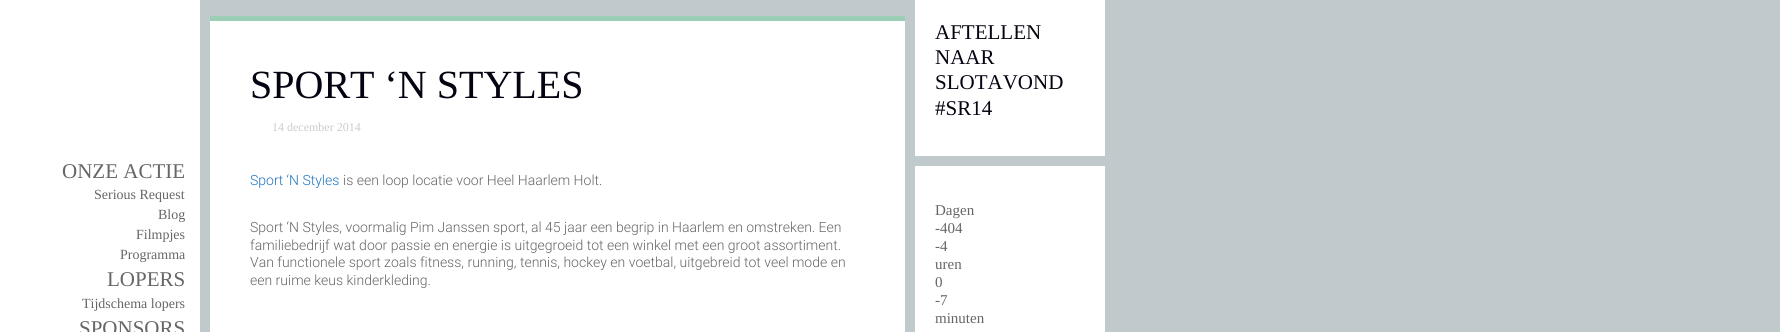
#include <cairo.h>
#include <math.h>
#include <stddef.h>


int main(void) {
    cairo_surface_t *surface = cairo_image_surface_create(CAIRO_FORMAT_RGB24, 1780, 332);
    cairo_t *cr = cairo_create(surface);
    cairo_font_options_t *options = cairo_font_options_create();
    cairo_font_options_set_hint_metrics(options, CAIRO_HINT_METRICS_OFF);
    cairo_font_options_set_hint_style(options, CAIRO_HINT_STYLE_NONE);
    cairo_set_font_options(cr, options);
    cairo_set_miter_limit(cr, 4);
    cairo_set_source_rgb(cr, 0.753, 0.788, 0.8);
    cairo_paint(cr);
    cairo_set_source_rgb(cr, 1, 1, 1);
    cairo_rectangle(cr, 0, 0, 200, 332);
    cairo_fill(cr);
    cairo_set_source_rgb(cr, 0.608, 0.808, 0.706);
    cairo_rectangle(cr, 210, 16, 695, 5);
    cairo_fill(cr);
    cairo_set_source_rgb(cr, 1, 1, 1);
    cairo_rectangle(cr, 210, 21, 695, 311);
    cairo_fill(cr);
    cairo_select_font_face(cr, "Liberation Serif", CAIRO_FONT_SLANT_NORMAL, CAIRO_FONT_WEIGHT_NORMAL);
    cairo_set_font_size(cr, 40);
    cairo_set_source_rgb(cr, 0.027, 0.008, 0.067);
    cairo_move_to(cr, 250, 98);
    cairo_show_text(cr, "SPORT ‘N STYLES");
    cairo_set_font_size(cr, 12);
    cairo_set_source_rgb(cr, 0.8, 0.8, 0.8);
    cairo_move_to(cr, 272, 131);
    cairo_show_text(cr, "14 december 2014");
    cairo_select_font_face(cr, "Roboto Light", CAIRO_FONT_SLANT_NORMAL, CAIRO_FONT_WEIGHT_NORMAL);
    cairo_set_font_size(cr, 14);
    cairo_set_source_rgb(cr, 0.118, 0.451, 0.745);
    cairo_move_to(cr, 250, 185);
    cairo_show_text(cr, "Sport ‘N Styles");
    cairo_set_source_rgb(cr, 0.4, 0.4, 0.4);
    cairo_move_to(cr, 343, 185);
    cairo_show_text(cr, "is een loop locatie voor Heel Haarlem Holt.");
    cairo_move_to(cr, 250, 232);
    cairo_show_text(cr, "Sport ‘N Styles, voormalig Pim Janssen sport, al 45 jaar een begrip in Haarlem en omstreken. Een");
    cairo_move_to(cr, 250, 250);
    cairo_show_text(cr, "familiebedrijf wat door passie en energie is uitgegroeid tot een winkel met een groot assortiment.");
    cairo_move_to(cr, 250, 267);
    cairo_show_text(cr, "Van functionele sport zoals fitness, running, tennis, hockey en voetbal, uitgebreid tot veel mode en");
    cairo_move_to(cr, 250, 285);
    cairo_show_text(cr, "een ruime keus kinderkleding.");
    cairo_set_source_rgb(cr, 1, 1, 1);
    cairo_rectangle(cr, 915, 0, 190, 156);
    cairo_fill(cr);
    cairo_select_font_face(cr, "Liberation Serif", CAIRO_FONT_SLANT_NORMAL, CAIRO_FONT_WEIGHT_NORMAL);
    cairo_set_font_size(cr, 21);
    cairo_set_source_rgb(cr, 0.027, 0.008, 0.067);
    cairo_move_to(cr, 935, 39);
    cairo_show_text(cr, "AFTELLEN");
    cairo_move_to(cr, 935, 64);
    cairo_show_text(cr, "NAAR");
    cairo_move_to(cr, 935, 89);
    cairo_show_text(cr, "SLOTAVOND");
    cairo_move_to(cr, 935, 115);
    cairo_show_text(cr, "#SR14");
    cairo_set_source_rgb(cr, 1, 1, 1);
    cairo_rectangle(cr, 915, 166, 190, 166);
    cairo_fill(cr);
    cairo_set_font_size(cr, 15);
    cairo_set_source_rgb(cr, 0.4, 0.4, 0.4);
    cairo_move_to(cr, 935, 215);
    cairo_show_text(cr, "Dagen");
    cairo_move_to(cr, 935, 233);
    cairo_show_text(cr, "-404");
    cairo_move_to(cr, 935, 251);
    cairo_show_text(cr, "-4");
    cairo_move_to(cr, 935, 269);
    cairo_show_text(cr, "uren");
    cairo_move_to(cr, 935, 287);
    cairo_show_text(cr, "0");
    cairo_move_to(cr, 935, 305);
    cairo_show_text(cr, "-7");
    cairo_move_to(cr, 935, 323);
    cairo_show_text(cr, "minuten");
    cairo_set_font_size(cr, 21);
    cairo_move_to(cr, 62, 178);
    cairo_show_text(cr, "ONZE ACTIE");
    cairo_set_font_size(cr, 14);
    cairo_move_to(cr, 94, 199);
    cairo_show_text(cr, "Serious Request");
    cairo_move_to(cr, 158, 219);
    cairo_show_text(cr, "Blog");
    cairo_move_to(cr, 136, 239);
    cairo_show_text(cr, "Filmpjes");
    cairo_move_to(cr, 120, 259);
    cairo_show_text(cr, "Programma");
    cairo_set_font_size(cr, 21);
    cairo_move_to(cr, 107, 286);
    cairo_show_text(cr, "LOPERS");
    cairo_set_font_size(cr, 14);
    cairo_move_to(cr, 82, 308);
    cairo_show_text(cr, "Tijdschema lopers");
    cairo_set_font_size(cr, 21);
    cairo_move_to(cr, 79, 335);
    cairo_show_text(cr, "SPONSORS");
    cairo_surface_write_to_png(surface, "page.png");
    cairo_font_options_destroy(options);
    cairo_destroy(cr);
    cairo_surface_destroy(surface);
    return 0;
}
